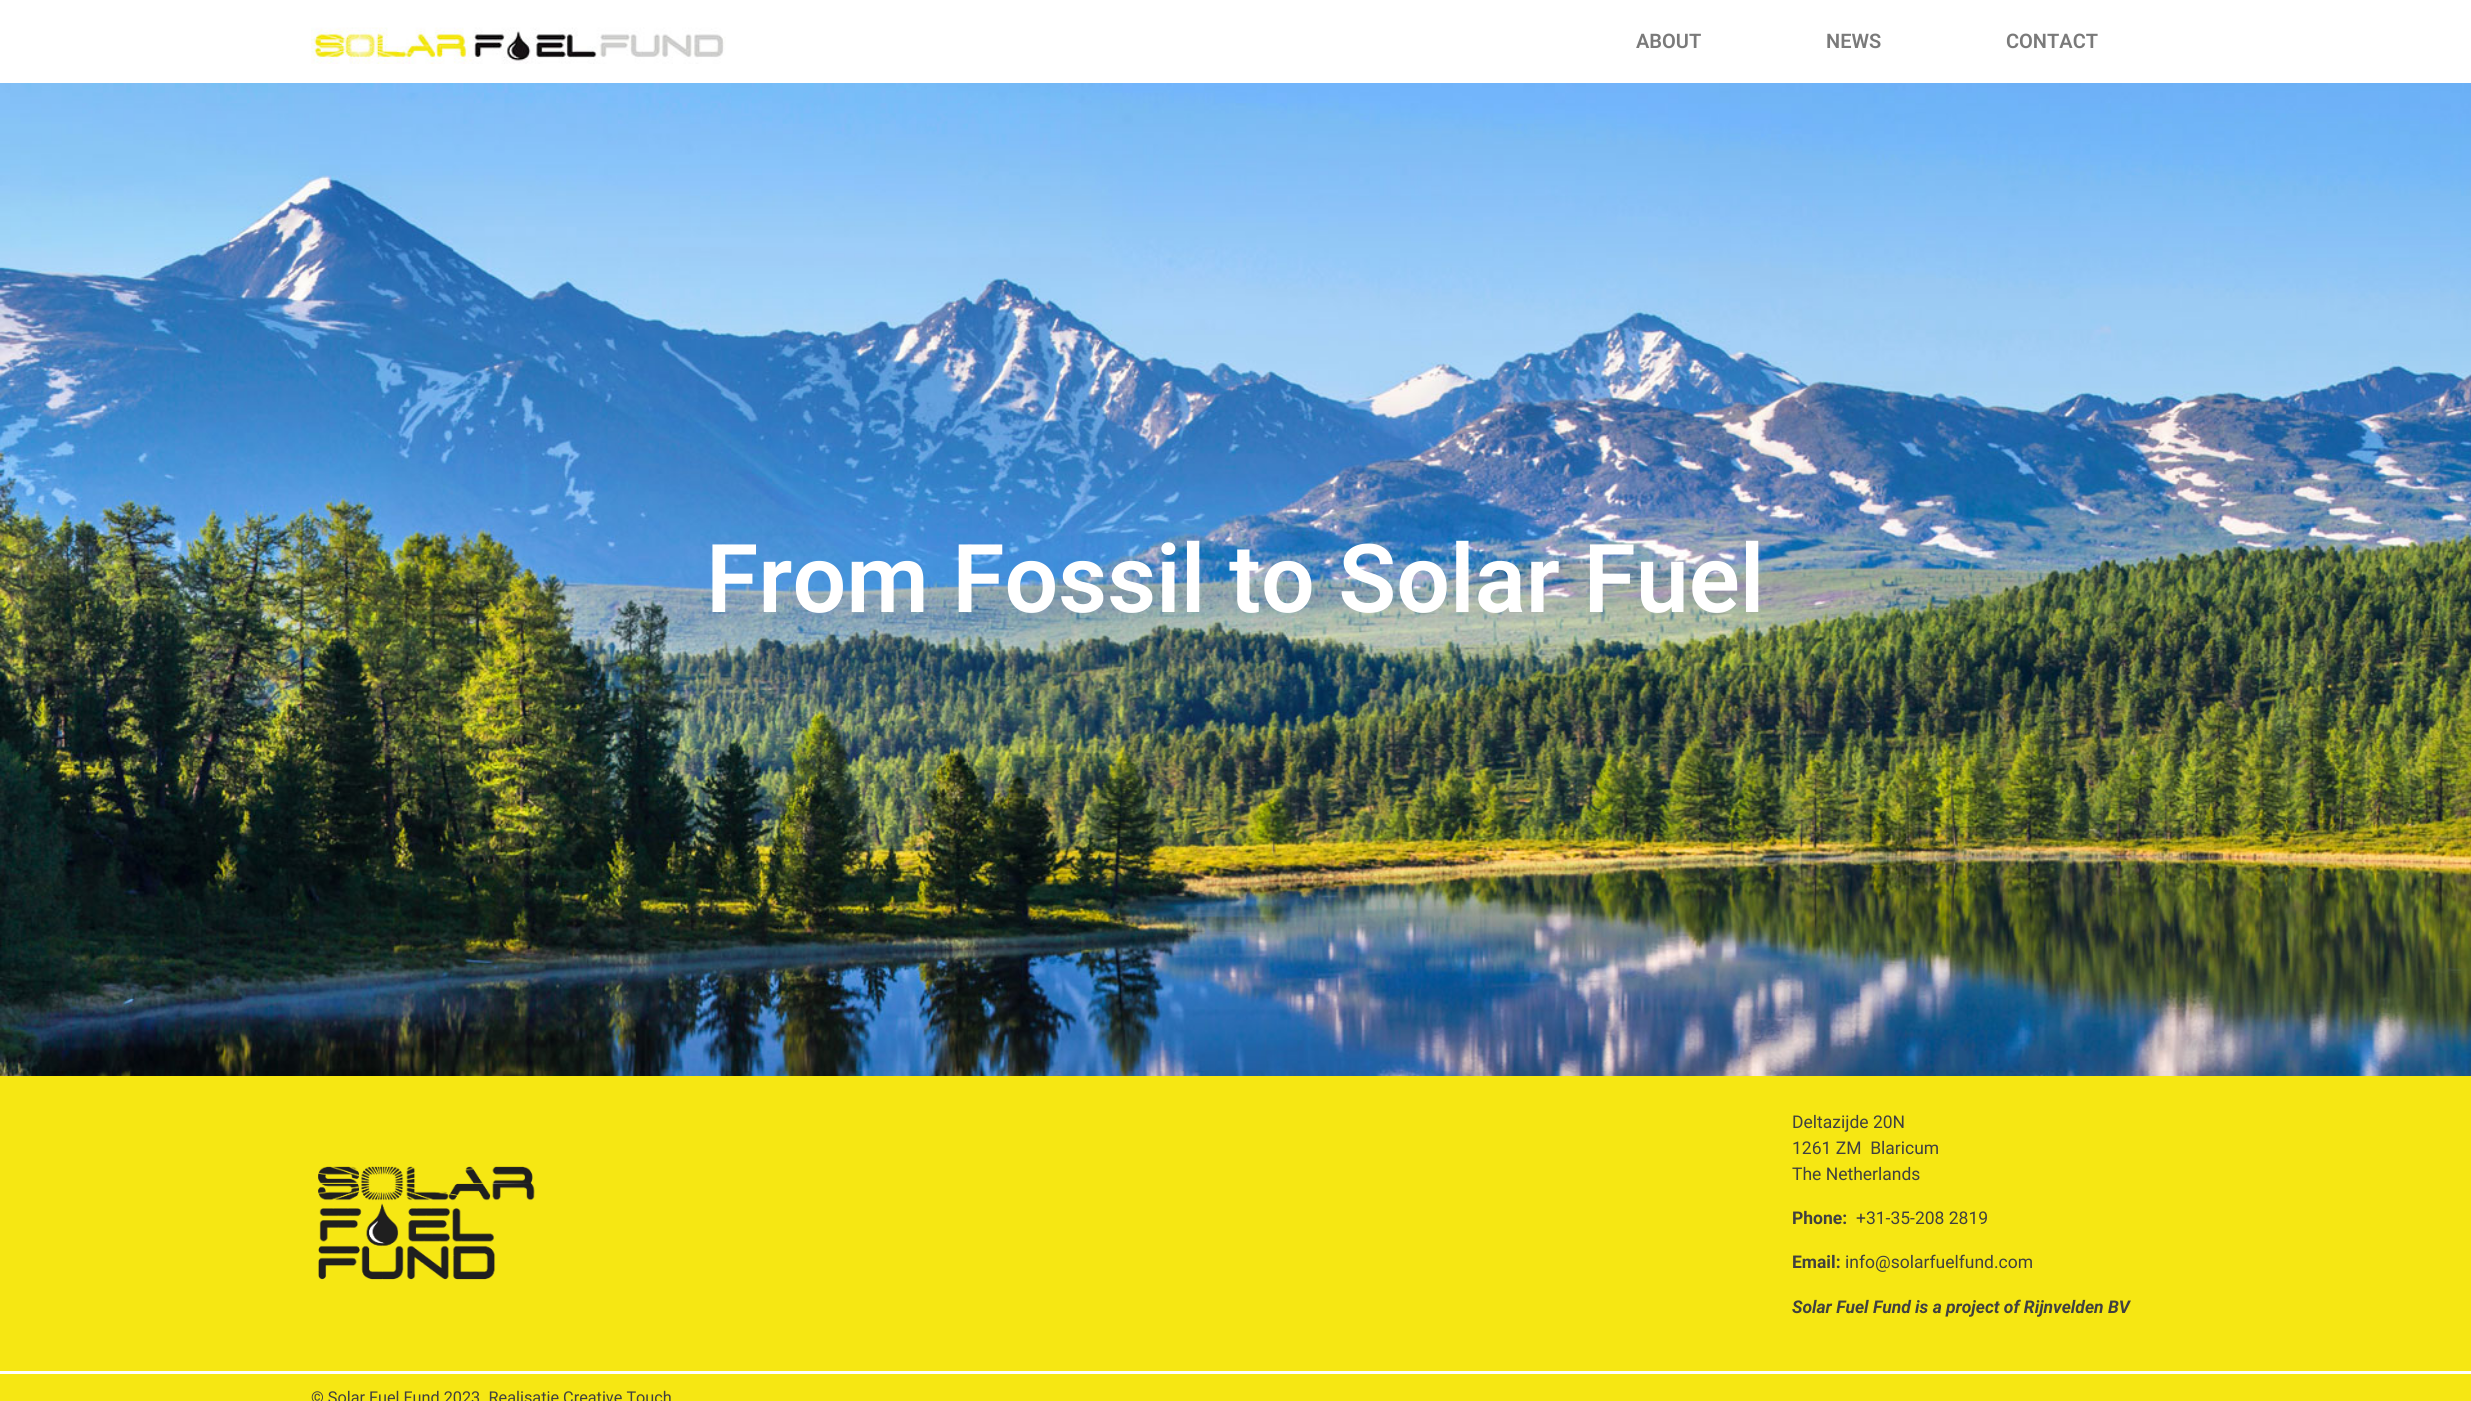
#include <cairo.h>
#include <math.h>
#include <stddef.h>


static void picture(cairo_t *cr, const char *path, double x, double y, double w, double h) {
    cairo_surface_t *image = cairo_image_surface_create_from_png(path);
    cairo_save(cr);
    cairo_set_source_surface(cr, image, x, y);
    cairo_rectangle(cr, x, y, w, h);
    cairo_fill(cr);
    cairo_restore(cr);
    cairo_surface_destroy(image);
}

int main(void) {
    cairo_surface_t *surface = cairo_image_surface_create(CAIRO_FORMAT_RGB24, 2471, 1401);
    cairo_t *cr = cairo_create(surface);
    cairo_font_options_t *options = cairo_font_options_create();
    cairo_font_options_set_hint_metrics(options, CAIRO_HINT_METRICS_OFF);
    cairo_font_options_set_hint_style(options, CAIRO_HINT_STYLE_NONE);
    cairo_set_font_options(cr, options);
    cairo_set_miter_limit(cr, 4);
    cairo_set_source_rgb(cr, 1, 1, 1);
    cairo_paint(cr);
    picture(cr, "img1.png", 311, 27, 415, 37);
    cairo_select_font_face(cr, "Roboto SemiBold", CAIRO_FONT_SLANT_NORMAL, CAIRO_FONT_WEIGHT_NORMAL);
    cairo_set_font_size(cr, 20);
    cairo_set_source_rgb(cr, 0.478, 0.478, 0.478);
    cairo_move_to(cr, 1636, 48);
    cairo_show_text(cr, "ABOUT");
    cairo_move_to(cr, 1826, 48);
    cairo_show_text(cr, "NEWS");
    cairo_move_to(cr, 2006, 48);
    cairo_show_text(cr, "CONTACT");
    picture(cr, "img2.png", 0, 83, 2471, 993);
    cairo_set_font_size(cr, 95);
    cairo_set_source_rgb(cr, 1, 1, 1);
    cairo_move_to(cr, 706, 612);
    cairo_show_text(cr, "From Fossil to Solar Fuel");
    cairo_set_source_rgb(cr, 0.961, 0.906, 0.078);
    cairo_rectangle(cr, 0, 1076, 2471, 295);
    cairo_fill(cr);
    picture(cr, "img3.png", 318, 1166, 217, 114);
    cairo_select_font_face(cr, "Roboto", CAIRO_FONT_SLANT_NORMAL, CAIRO_FONT_WEIGHT_NORMAL);
    cairo_set_font_size(cr, 17.5);
    cairo_set_source_rgb(cr, 0.251, 0.251, 0.251);
    cairo_move_to(cr, 1792, 1128);
    cairo_show_text(cr, "Deltazijde 20N");
    cairo_move_to(cr, 1792, 1154);
    cairo_show_text(cr, "1261 ZM  Blaricum");
    cairo_move_to(cr, 1792, 1180);
    cairo_show_text(cr, "The Netherlands");
    cairo_select_font_face(cr, "Roboto", CAIRO_FONT_SLANT_NORMAL, CAIRO_FONT_WEIGHT_BOLD);
    cairo_move_to(cr, 1792, 1224);
    cairo_show_text(cr, "Phone:");
    cairo_select_font_face(cr, "Roboto", CAIRO_FONT_SLANT_NORMAL, CAIRO_FONT_WEIGHT_NORMAL);
    cairo_move_to(cr, 1856, 1224);
    cairo_show_text(cr, "+31-35-208 2819");
    cairo_select_font_face(cr, "Roboto", CAIRO_FONT_SLANT_NORMAL, CAIRO_FONT_WEIGHT_BOLD);
    cairo_move_to(cr, 1792, 1268);
    cairo_show_text(cr, "Email:");
    cairo_select_font_face(cr, "Roboto", CAIRO_FONT_SLANT_NORMAL, CAIRO_FONT_WEIGHT_NORMAL);
    cairo_move_to(cr, 1845, 1268);
    cairo_show_text(cr, "info@solarfuelfund.com");
    cairo_select_font_face(cr, "Roboto", CAIRO_FONT_SLANT_ITALIC, CAIRO_FONT_WEIGHT_BOLD);
    cairo_move_to(cr, 1792, 1313);
    cairo_show_text(cr, "Solar Fuel Fund is a project of Rijnvelden BV");
    cairo_set_source_rgb(cr, 0.961, 0.906, 0.078);
    cairo_rectangle(cr, 0, 1374, 2471, 27);
    cairo_fill(cr);
    cairo_select_font_face(cr, "Roboto", CAIRO_FONT_SLANT_NORMAL, CAIRO_FONT_WEIGHT_NORMAL);
    cairo_set_font_size(cr, 16.25);
    cairo_set_source_rgb(cr, 0.251, 0.251, 0.251);
    cairo_move_to(cr, 311, 1403);
    cairo_show_text(cr, "© Solar Fuel Fund 2023. Realisatie Creative Touch");
    cairo_surface_write_to_png(surface, "page.png");
    cairo_font_options_destroy(options);
    cairo_destroy(cr);
    cairo_surface_destroy(surface);
    return 0;
}
